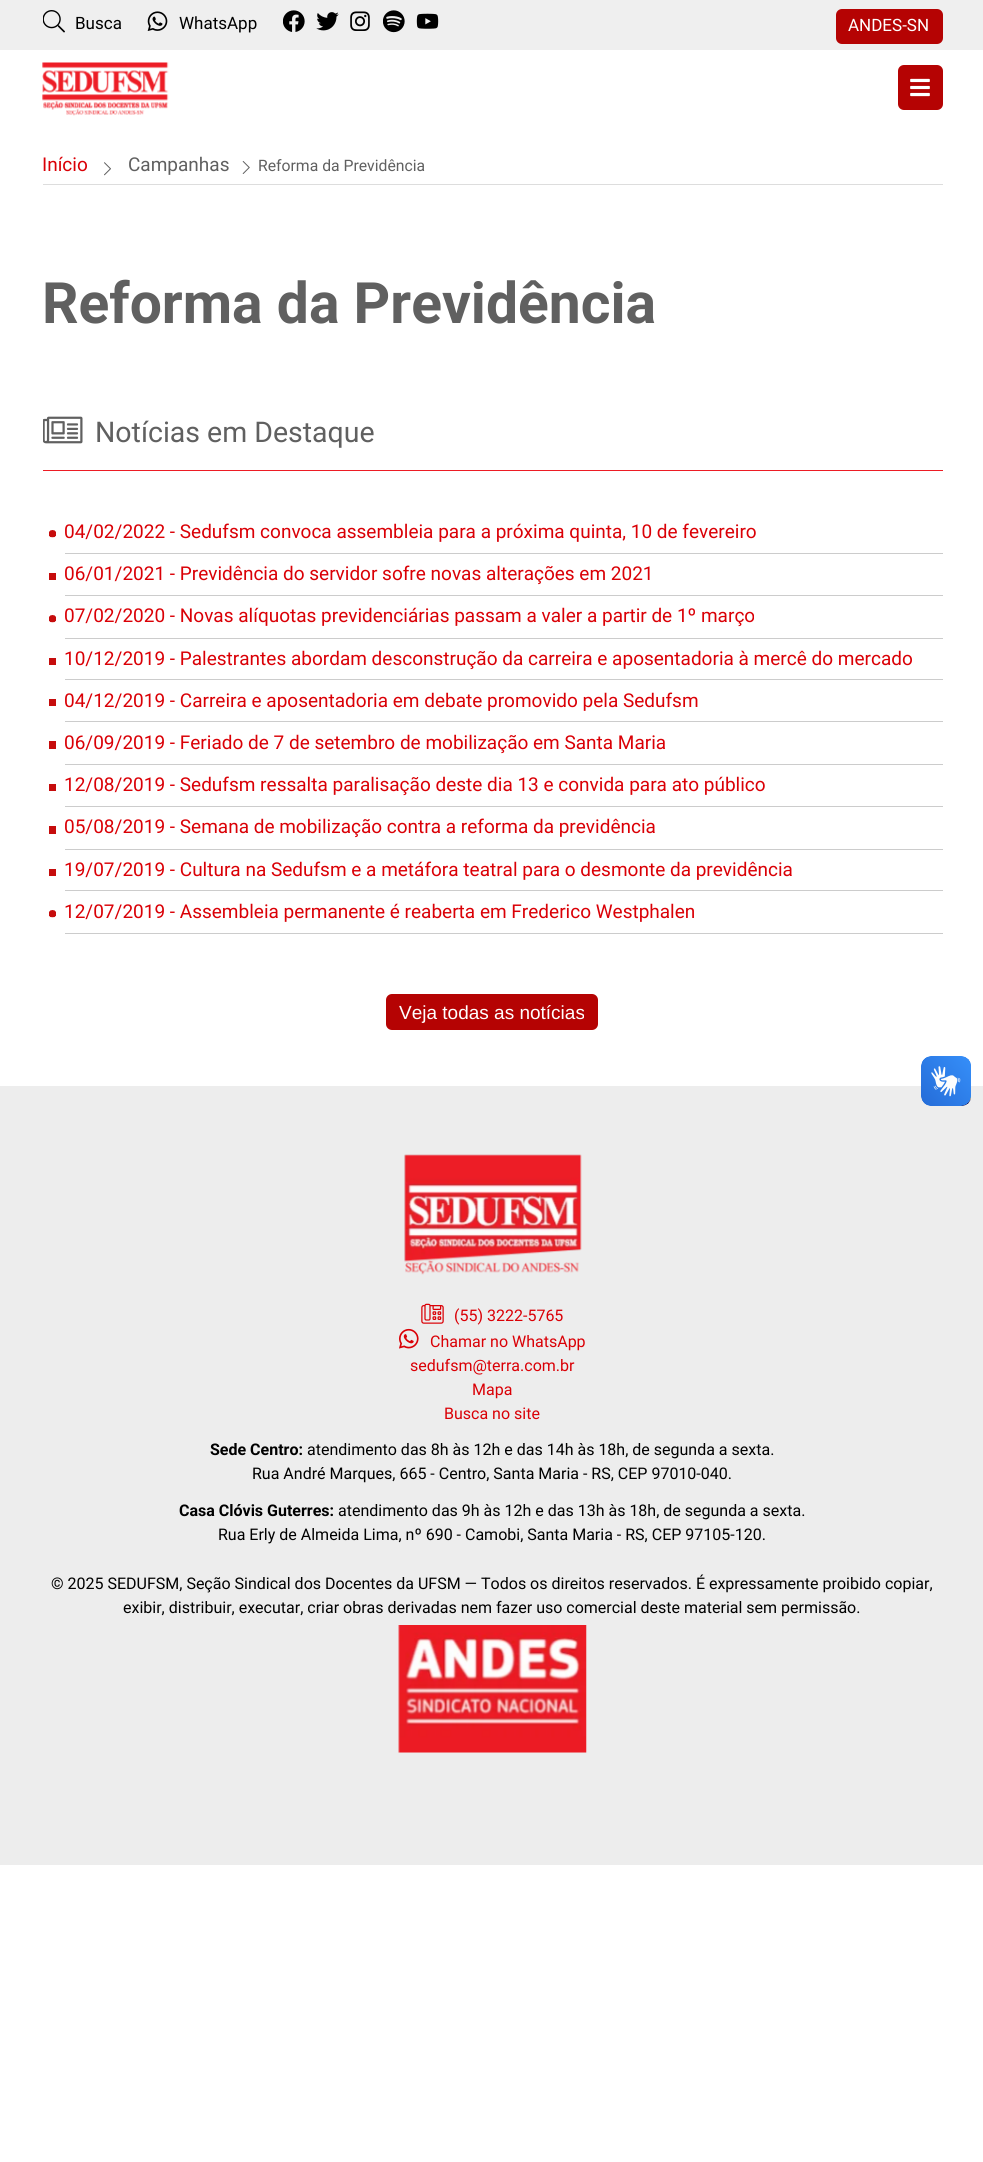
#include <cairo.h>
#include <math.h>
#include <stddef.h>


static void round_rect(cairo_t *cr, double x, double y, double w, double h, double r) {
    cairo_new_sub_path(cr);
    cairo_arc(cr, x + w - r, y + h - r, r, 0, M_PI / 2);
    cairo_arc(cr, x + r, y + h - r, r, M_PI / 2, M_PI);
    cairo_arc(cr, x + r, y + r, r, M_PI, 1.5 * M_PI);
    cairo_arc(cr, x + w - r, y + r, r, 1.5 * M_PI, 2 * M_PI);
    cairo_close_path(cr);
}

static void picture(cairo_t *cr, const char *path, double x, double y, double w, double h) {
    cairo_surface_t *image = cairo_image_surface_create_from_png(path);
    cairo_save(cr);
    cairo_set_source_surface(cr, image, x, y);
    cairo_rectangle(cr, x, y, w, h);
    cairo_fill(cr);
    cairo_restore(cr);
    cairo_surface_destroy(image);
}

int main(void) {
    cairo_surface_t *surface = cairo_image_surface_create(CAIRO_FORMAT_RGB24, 983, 2162);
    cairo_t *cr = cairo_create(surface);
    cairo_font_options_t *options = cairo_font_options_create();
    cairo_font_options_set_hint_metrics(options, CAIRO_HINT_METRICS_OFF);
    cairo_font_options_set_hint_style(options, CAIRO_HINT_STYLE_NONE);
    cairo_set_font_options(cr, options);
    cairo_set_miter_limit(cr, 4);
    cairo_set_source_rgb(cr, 1, 1, 1);
    cairo_paint(cr);
    cairo_set_source_rgb(cr, 0.937, 0.937, 0.937);
    cairo_rectangle(cr, 0, 0, 983, 50);
    cairo_fill(cr);
    picture(cr, "img1.png", 43, 10, 22, 23);
    cairo_select_font_face(cr, "Roboto", CAIRO_FONT_SLANT_NORMAL, CAIRO_FONT_WEIGHT_NORMAL);
    cairo_set_font_size(cr, 17);
    cairo_set_source_rgb(cr, 0, 0, 0);
    cairo_move_to(cr, 75, 29);
    cairo_show_text(cr, "Busca");
    picture(cr, "img2.png", 147, 11, 21, 20);
    cairo_move_to(cr, 179, 29);
    cairo_show_text(cr, "WhatsApp");
    picture(cr, "img3.png", 283, 10, 22, 22);
    picture(cr, "img4.png", 316, 12, 23, 19);
    picture(cr, "img5.png", 350, 11, 20, 20);
    picture(cr, "img6.png", 383, 10, 22, 23);
    picture(cr, "img7.png", 416, 13, 23, 16);
    cairo_set_source_rgb(cr, 0.71, 0.012, 0.012);
    round_rect(cr, 836, 9, 107, 35, 6);
    cairo_fill(cr);
    cairo_set_source_rgb(cr, 1, 1, 1);
    cairo_move_to(cr, 848, 31);
    cairo_show_text(cr, "ANDES-SN");
    picture(cr, "img8.png", 42, 62, 127, 54);
    cairo_set_source_rgb(cr, 0.71, 0.012, 0.012);
    round_rect(cr, 898, 65, 45, 45, 6);
    cairo_fill(cr);
    picture(cr, "img9.png", 910, 78, 20, 19);
    cairo_set_source_rgb(cr, 0.867, 0.867, 0.867);
    cairo_rectangle(cr, 43, 184, 900, 1);
    cairo_fill(cr);
    cairo_set_font_size(cr, 19);
    cairo_set_source_rgb(cr, 0.855, 0, 0.024);
    cairo_move_to(cr, 42, 171);
    cairo_show_text(cr, "Início");
    picture(cr, "img10.png", 104, 162, 7, 14);
    cairo_set_source_rgb(cr, 0.376, 0.376, 0.376);
    cairo_move_to(cr, 128, 171);
    cairo_show_text(cr, "Campanhas");
    picture(cr, "img11.png", 242, 161, 8, 13);
    cairo_set_font_size(cr, 15.75);
    cairo_move_to(cr, 258, 171);
    cairo_show_text(cr, "Reforma da Previdência");
    cairo_select_font_face(cr, "Roboto", CAIRO_FONT_SLANT_NORMAL, CAIRO_FONT_WEIGHT_BOLD);
    cairo_set_font_size(cr, 57);
    cairo_move_to(cr, 42, 323);
    cairo_show_text(cr, "Reforma da Previdência");
    cairo_set_source_rgb(cr, 0.929, 0.11, 0.141);
    cairo_rectangle(cr, 43, 470, 900, 1);
    cairo_fill(cr);
    picture(cr, "img12.png", 43, 416, 40, 28);
    cairo_select_font_face(cr, "Roboto", CAIRO_FONT_SLANT_NORMAL, CAIRO_FONT_WEIGHT_NORMAL);
    cairo_set_font_size(cr, 28.5);
    cairo_set_source_rgb(cr, 0.376, 0.376, 0.376);
    cairo_move_to(cr, 95, 442);
    cairo_show_text(cr, "Notícias em Destaque");
    cairo_set_source_rgb(cr, 0.8, 0.8, 0.8);
    cairo_rectangle(cr, 65, 553, 878, 1);
    cairo_fill(cr);
    picture(cr, "img13.png", 49, 530, 7, 8);
    cairo_set_font_size(cr, 19);
    cairo_set_source_rgb(cr, 0.855, 0, 0.024);
    cairo_move_to(cr, 64, 538);
    cairo_show_text(cr, "04/02/2022 - Sedufsm convoca assembleia para a próxima quinta, 10 de fevereiro");
    cairo_set_source_rgb(cr, 0.8, 0.8, 0.8);
    cairo_rectangle(cr, 65, 595, 878, 1);
    cairo_fill(cr);
    cairo_set_source_rgb(cr, 0.776, 0.047, 0.047);
    cairo_rectangle(cr, 49, 573, 7, 7);
    cairo_fill(cr);
    cairo_set_source_rgb(cr, 0.855, 0, 0.024);
    cairo_move_to(cr, 64, 580);
    cairo_show_text(cr, "06/01/2021 - Previdência do servidor sofre novas alterações em 2021");
    cairo_set_source_rgb(cr, 0.8, 0.8, 0.8);
    cairo_rectangle(cr, 65, 638, 878, 1);
    cairo_fill(cr);
    picture(cr, "img13.png", 49, 615, 7, 8);
    cairo_set_source_rgb(cr, 0.855, 0, 0.024);
    cairo_move_to(cr, 64, 622);
    cairo_show_text(cr, "07/02/2020 - Novas alíquotas previdenciárias passam a valer a partir de 1º março");
    cairo_set_source_rgb(cr, 0.8, 0.8, 0.8);
    cairo_rectangle(cr, 65, 679, 878, 1);
    cairo_fill(cr);
    cairo_set_source_rgb(cr, 0.776, 0.047, 0.047);
    cairo_rectangle(cr, 49, 658, 7, 7);
    cairo_fill(cr);
    cairo_set_source_rgb(cr, 0.855, 0, 0.024);
    cairo_move_to(cr, 64, 665);
    cairo_show_text(cr, "10/12/2019 - Palestrantes abordam desconstrução da carreira e aposentadoria à mercê do mercado");
    cairo_set_source_rgb(cr, 0.8, 0.8, 0.8);
    cairo_rectangle(cr, 65, 721, 878, 1);
    cairo_fill(cr);
    cairo_set_source_rgb(cr, 0.776, 0.047, 0.047);
    cairo_rectangle(cr, 49, 699, 7, 7);
    cairo_fill(cr);
    cairo_set_source_rgb(cr, 0.855, 0, 0.024);
    cairo_move_to(cr, 64, 707);
    cairo_show_text(cr, "04/12/2019 - Carreira e aposentadoria em debate promovido pela Sedufsm");
    cairo_set_source_rgb(cr, 0.8, 0.8, 0.8);
    cairo_rectangle(cr, 65, 764, 878, 1);
    cairo_fill(cr);
    cairo_set_source_rgb(cr, 0.776, 0.047, 0.047);
    cairo_rectangle(cr, 49, 741, 7, 8);
    cairo_fill(cr);
    cairo_set_source_rgb(cr, 0.855, 0, 0.024);
    cairo_move_to(cr, 64, 749);
    cairo_show_text(cr, "06/09/2019 - Feriado de 7 de setembro de mobilização em Santa Maria");
    cairo_set_source_rgb(cr, 0.8, 0.8, 0.8);
    cairo_rectangle(cr, 65, 806, 878, 1);
    cairo_fill(cr);
    cairo_set_source_rgb(cr, 0.776, 0.047, 0.047);
    cairo_rectangle(cr, 49, 784, 7, 7);
    cairo_fill(cr);
    cairo_set_source_rgb(cr, 0.855, 0, 0.024);
    cairo_move_to(cr, 64, 791);
    cairo_show_text(cr, "12/08/2019 - Sedufsm ressalta paralisação deste dia 13 e convida para ato público");
    cairo_set_source_rgb(cr, 0.8, 0.8, 0.8);
    cairo_rectangle(cr, 65, 849, 878, 1);
    cairo_fill(cr);
    cairo_set_source_rgb(cr, 0.776, 0.047, 0.047);
    cairo_rectangle(cr, 49, 826, 7, 8);
    cairo_fill(cr);
    cairo_set_source_rgb(cr, 0.855, 0, 0.024);
    cairo_move_to(cr, 64, 833);
    cairo_show_text(cr, "05/08/2019 - Semana de mobilização contra a reforma da previdência");
    cairo_set_source_rgb(cr, 0.8, 0.8, 0.8);
    cairo_rectangle(cr, 65, 890, 878, 1);
    cairo_fill(cr);
    cairo_set_source_rgb(cr, 0.776, 0.047, 0.047);
    cairo_rectangle(cr, 49, 869, 7, 7);
    cairo_fill(cr);
    cairo_set_source_rgb(cr, 0.855, 0, 0.024);
    cairo_move_to(cr, 64, 876);
    cairo_show_text(cr, "19/07/2019 - Cultura na Sedufsm e a metáfora teatral para o desmonte da previdência");
    cairo_set_source_rgb(cr, 0.8, 0.8, 0.8);
    cairo_rectangle(cr, 65, 933, 878, 1);
    cairo_fill(cr);
    picture(cr, "img13.png", 49, 910, 7, 8);
    cairo_set_source_rgb(cr, 0.855, 0, 0.024);
    cairo_move_to(cr, 64, 918);
    cairo_show_text(cr, "12/07/2019 - Assembleia permanente é reaberta em Frederico Westphalen");
    cairo_set_source_rgb(cr, 0.71, 0.012, 0.012);
    round_rect(cr, 386, 994, 212, 36, 6);
    cairo_fill(cr);
    cairo_select_font_face(cr, "Liberation Sans", CAIRO_FONT_SLANT_NORMAL, CAIRO_FONT_WEIGHT_NORMAL);
    cairo_set_source_rgb(cr, 1, 1, 1);
    cairo_move_to(cr, 399, 1019);
    cairo_show_text(cr, "Veja todas as notícias");
    cairo_set_source_rgb(cr, 0.929, 0.929, 0.929);
    cairo_rectangle(cr, 0, 1086, 983, 779);
    cairo_fill(cr);
    picture(cr, "img14.png", 921, 1056, 50, 50);
    picture(cr, "img15.png", 921, 1056, 50, 50);
    picture(cr, "img16.png", 404, 1154, 178, 121);
    picture(cr, "img17.png", 421, 1303, 23, 21);
    cairo_select_font_face(cr, "Roboto", CAIRO_FONT_SLANT_NORMAL, CAIRO_FONT_WEIGHT_NORMAL);
    cairo_set_font_size(cr, 16);
    cairo_set_source_rgb(cr, 0.855, 0, 0.024);
    cairo_move_to(cr, 454, 1321);
    cairo_show_text(cr, "(55) 3222-5765");
    picture(cr, "img18.png", 399, 1328, 20, 21);
    cairo_move_to(cr, 430, 1347);
    cairo_show_text(cr, "Chamar no WhatsApp");
    cairo_move_to(cr, 410, 1371);
    cairo_show_text(cr, "sedufsm@terra.com.br");
    cairo_move_to(cr, 472, 1395);
    cairo_show_text(cr, "Mapa");
    cairo_move_to(cr, 444, 1419);
    cairo_show_text(cr, "Busca no site");
    cairo_select_font_face(cr, "Roboto", CAIRO_FONT_SLANT_NORMAL, CAIRO_FONT_WEIGHT_BOLD);
    cairo_set_source_rgb(cr, 0, 0, 0);
    cairo_move_to(cr, 210, 1455);
    cairo_show_text(cr, "Sede Centro:");
    cairo_select_font_face(cr, "Roboto", CAIRO_FONT_SLANT_NORMAL, CAIRO_FONT_WEIGHT_NORMAL);
    cairo_move_to(cr, 307, 1455);
    cairo_show_text(cr, "atendimento das 8h às 12h e das 14h às 18h, de segunda a sexta.");
    cairo_move_to(cr, 252, 1479);
    cairo_show_text(cr, "Rua André Marques, 665 - Centro, Santa Maria - RS, CEP 97010-040.");
    cairo_select_font_face(cr, "Roboto", CAIRO_FONT_SLANT_NORMAL, CAIRO_FONT_WEIGHT_BOLD);
    cairo_move_to(cr, 179, 1516);
    cairo_show_text(cr, "Casa Clóvis Guterres:");
    cairo_select_font_face(cr, "Roboto", CAIRO_FONT_SLANT_NORMAL, CAIRO_FONT_WEIGHT_NORMAL);
    cairo_move_to(cr, 338, 1516);
    cairo_show_text(cr, "atendimento das 9h às 12h e das 13h às 18h, de segunda a sexta.");
    cairo_move_to(cr, 218, 1540);
    cairo_show_text(cr, "Rua Erly de Almeida Lima, nº 690 - Camobi, Santa Maria - RS, CEP 97105-120.");
    cairo_move_to(cr, 51, 1589);
    cairo_show_text(cr, "© 2025 SEDUFSM, Seção Sindical dos Docentes da UFSM — Todos os direitos reservados. É expressamente proibido copiar,");
    cairo_move_to(cr, 123, 1613);
    cairo_show_text(cr, "exibir, distribuir, executar, criar obras derivadas nem fazer uso comercial deste material sem permissão.");
    picture(cr, "img19.png", 398, 1625, 189, 128);
    cairo_surface_write_to_png(surface, "page.png");
    cairo_font_options_destroy(options);
    cairo_destroy(cr);
    cairo_surface_destroy(surface);
    return 0;
}
